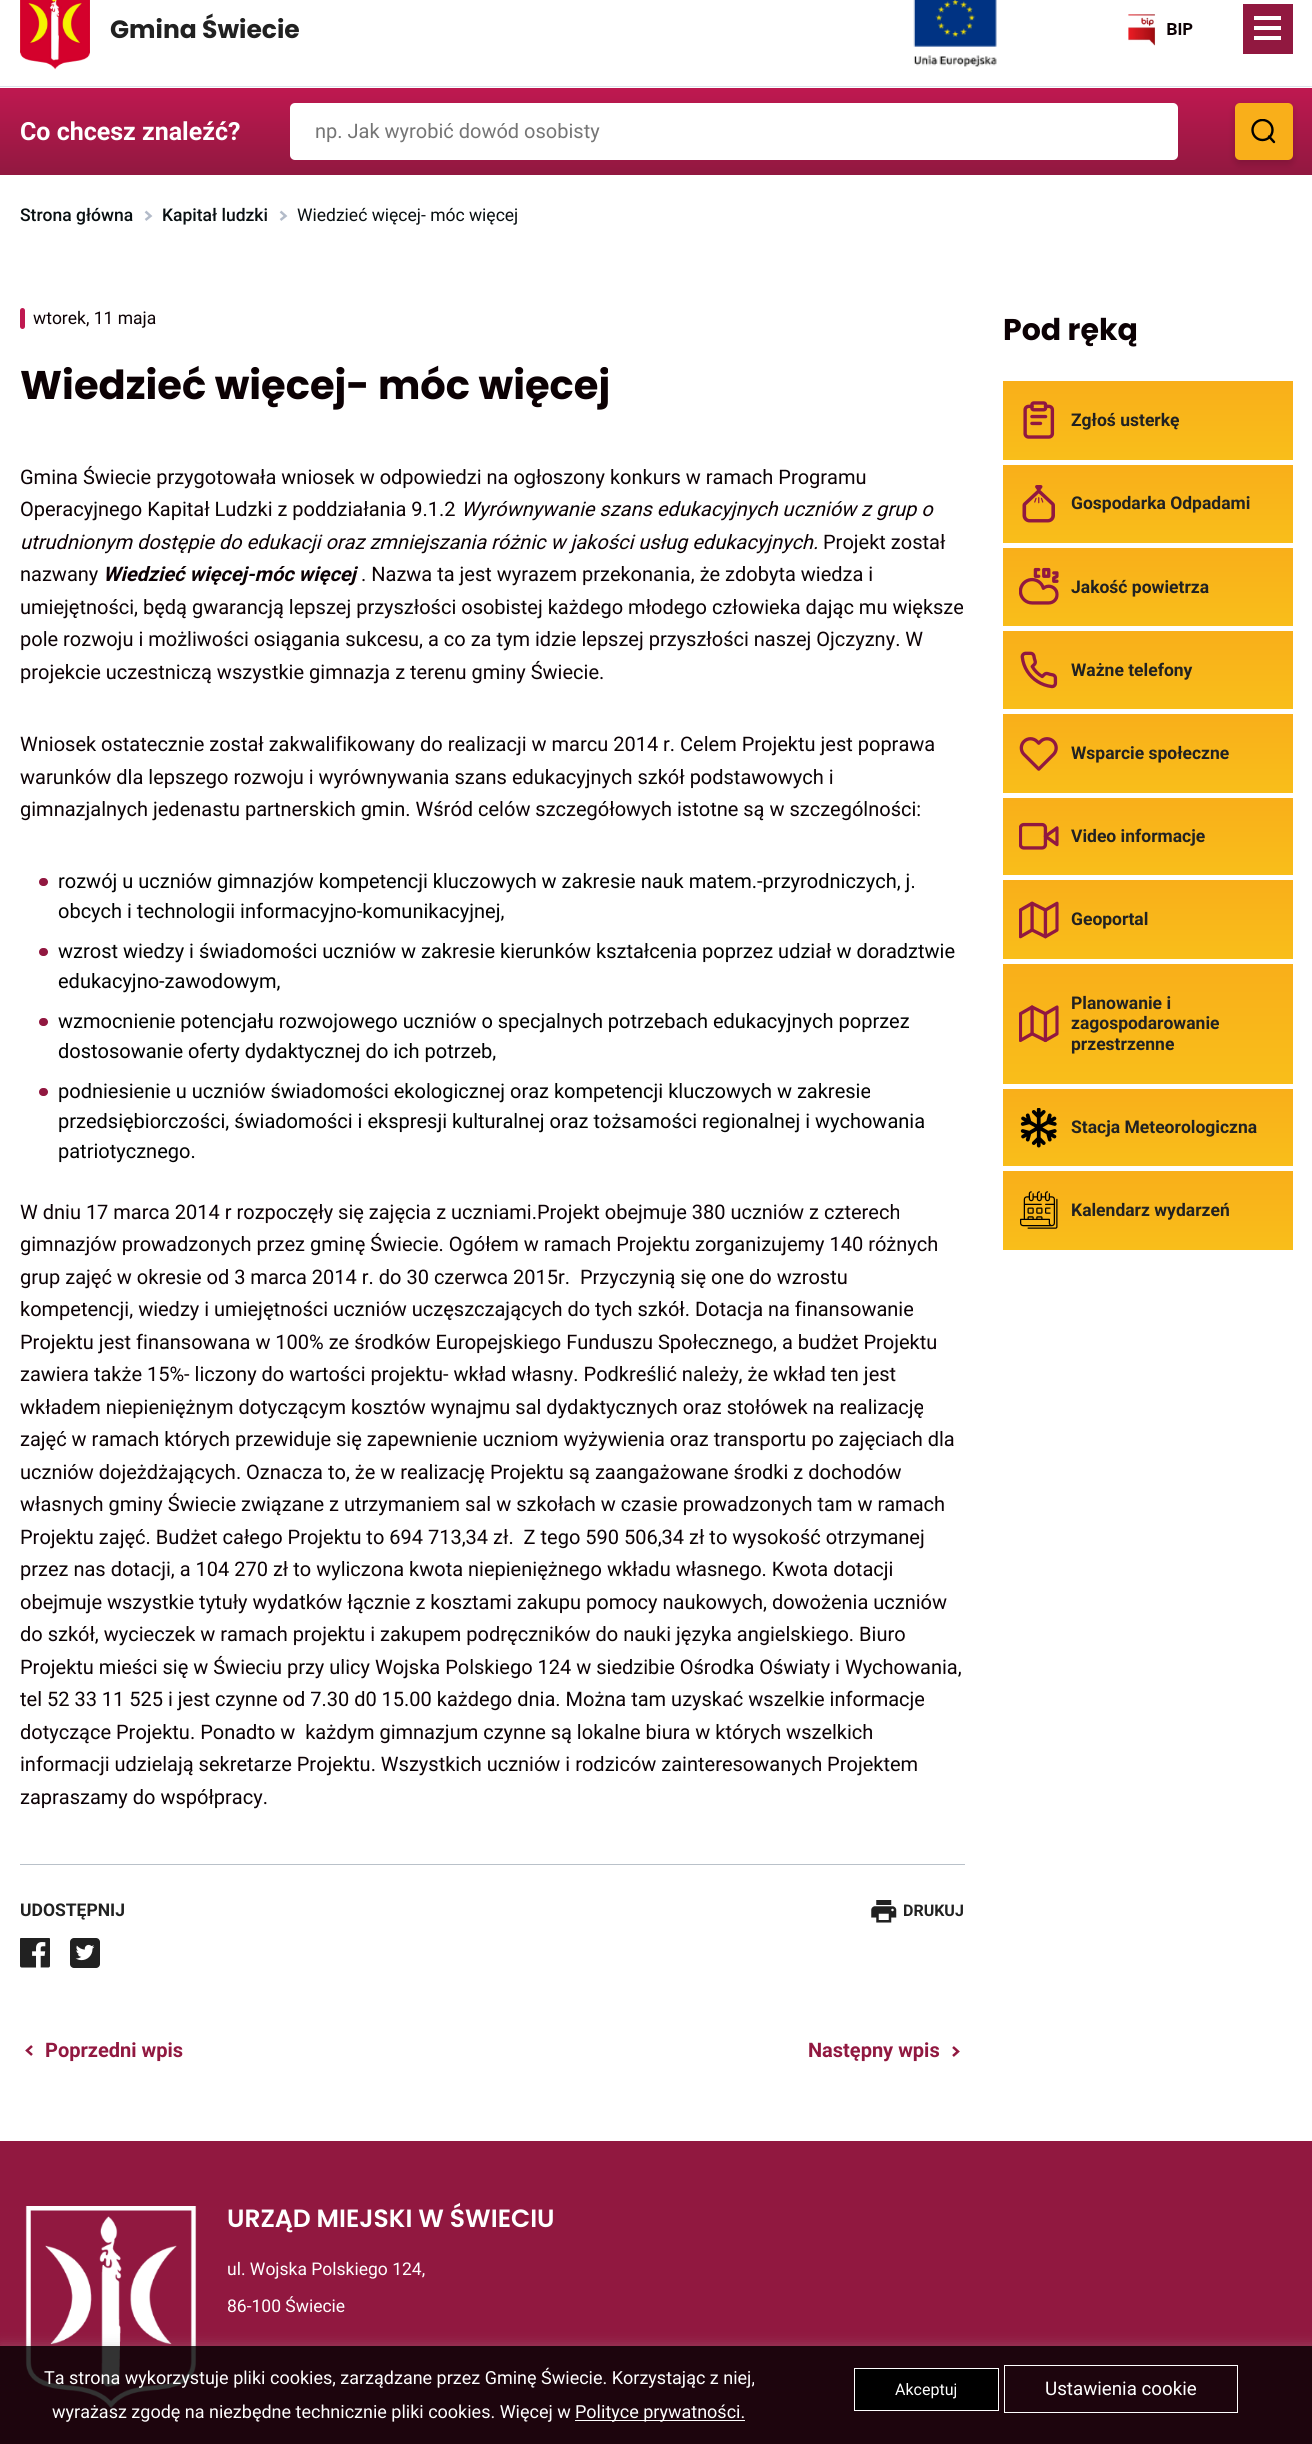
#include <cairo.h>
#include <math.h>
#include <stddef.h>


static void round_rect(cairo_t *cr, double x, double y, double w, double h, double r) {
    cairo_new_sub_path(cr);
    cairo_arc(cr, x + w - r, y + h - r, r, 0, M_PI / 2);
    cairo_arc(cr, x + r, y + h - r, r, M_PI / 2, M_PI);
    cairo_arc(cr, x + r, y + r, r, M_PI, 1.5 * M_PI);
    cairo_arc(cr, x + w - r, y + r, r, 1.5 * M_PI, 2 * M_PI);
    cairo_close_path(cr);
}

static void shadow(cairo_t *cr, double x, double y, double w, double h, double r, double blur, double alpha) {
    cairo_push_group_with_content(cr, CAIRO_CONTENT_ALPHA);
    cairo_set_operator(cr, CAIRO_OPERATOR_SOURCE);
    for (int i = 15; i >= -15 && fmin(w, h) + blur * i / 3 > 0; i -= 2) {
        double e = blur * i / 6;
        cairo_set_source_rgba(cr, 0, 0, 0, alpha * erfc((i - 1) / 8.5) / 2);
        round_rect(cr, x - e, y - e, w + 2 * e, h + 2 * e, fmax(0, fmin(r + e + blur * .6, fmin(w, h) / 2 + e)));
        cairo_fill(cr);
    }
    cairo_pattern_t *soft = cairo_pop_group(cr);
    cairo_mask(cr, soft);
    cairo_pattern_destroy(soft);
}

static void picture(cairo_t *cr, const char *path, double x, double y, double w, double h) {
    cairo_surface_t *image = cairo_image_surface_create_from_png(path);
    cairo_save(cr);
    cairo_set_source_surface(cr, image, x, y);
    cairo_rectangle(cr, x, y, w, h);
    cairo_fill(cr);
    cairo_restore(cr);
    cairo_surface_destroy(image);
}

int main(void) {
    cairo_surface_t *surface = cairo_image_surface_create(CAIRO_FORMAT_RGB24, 1312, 2444);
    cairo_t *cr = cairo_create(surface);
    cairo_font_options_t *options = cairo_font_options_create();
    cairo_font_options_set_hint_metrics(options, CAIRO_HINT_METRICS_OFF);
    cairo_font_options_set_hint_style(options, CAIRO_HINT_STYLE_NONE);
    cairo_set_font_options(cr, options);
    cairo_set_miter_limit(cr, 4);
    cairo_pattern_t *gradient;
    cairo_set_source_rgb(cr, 1, 1, 1);
    cairo_paint(cr);
    cairo_set_source_rgb(cr, 0.867, 0.89, 0.922);
    cairo_rectangle(cr, 0, 86, 1312, 1);
    cairo_fill(cr);
    picture(cr, "img1.png", 20, 0, 70, 70);
    cairo_select_font_face(cr, "Poppins", CAIRO_FONT_SLANT_NORMAL, CAIRO_FONT_WEIGHT_BOLD);
    cairo_set_font_size(cr, 25);
    cairo_set_source_rgb(cr, 0.129, 0.129, 0.129);
    cairo_move_to(cr, 110, 38);
    cairo_show_text(cr, "Gmina Świecie");
    picture(cr, "img2.png", 913, 0, 84, 67);
    picture(cr, "img3.png", 1128, 14, 65, 32);
    cairo_set_source_rgb(cr, 0.569, 0.094, 0.251);
    cairo_rectangle(cr, 1243, 4, 50, 50);
    cairo_fill(cr);
    cairo_set_source_rgb(cr, 1, 1, 1);
    cairo_rectangle(cr, 1254, 26, 27, 4);
    cairo_fill(cr);
    cairo_rectangle(cr, 1254, 16, 27, 4);
    cairo_fill(cr);
    cairo_rectangle(cr, 1254, 36, 27, 4);
    cairo_fill(cr);
    gradient = cairo_pattern_create_linear(656, 87, 656, 175);
    cairo_pattern_add_color_stop_rgba(gradient, 0, 0.749, 0.094, 0.314, 1);
    cairo_pattern_add_color_stop_rgba(gradient, 1, 0.569, 0.094, 0.251, 1);
    cairo_set_source(cr, gradient);
    cairo_pattern_destroy(gradient);
    cairo_rectangle(cr, 0, 88, 1312, 87);
    cairo_fill(cr);
    cairo_select_font_face(cr, "Roboto", CAIRO_FONT_SLANT_NORMAL, CAIRO_FONT_WEIGHT_BOLD);
    cairo_set_source_rgb(cr, 1, 1, 1);
    cairo_move_to(cr, 20, 140);
    cairo_show_text(cr, "Co chcesz znaleźć?");
    round_rect(cr, 290, 103, 888, 57, 5);
    cairo_fill(cr);
    cairo_select_font_face(cr, "Roboto", CAIRO_FONT_SLANT_NORMAL, CAIRO_FONT_WEIGHT_NORMAL);
    cairo_set_font_size(cr, 20);
    cairo_set_source_rgb(cr, 0.459, 0.459, 0.459);
    cairo_move_to(cr, 315, 138);
    cairo_show_text(cr, "np. Jak wyrobić dowód osobisty");
    cairo_set_source_rgb(cr, 0, 0, 0);
    shadow(cr, 1235, 106, 58, 58, 5, 4, 0.16);
    cairo_set_source_rgb(cr, 0.976, 0.686, 0.102);
    round_rect(cr, 1235, 103, 58, 57, 5);
    cairo_fill(cr);
    cairo_save(cr);
    cairo_rectangle(cr, 1251, 119, 25, 25);
    cairo_clip(cr);
    cairo_arc(cr, 1262.5, 130, 10, 0, 2 * M_PI);
    cairo_set_source_rgb(cr, 0, 0, 0);
    cairo_set_line_width(cr, 2.4);
    cairo_stroke(cr);
    cairo_restore(cr);
    cairo_new_path(cr);
    cairo_move_to(cr, 1274, 142);
    cairo_line_to(cr, 1269, 136.5);
    cairo_set_source_rgb(cr, 0, 0, 0);
    cairo_set_line_width(cr, 2.4);
    cairo_set_line_cap(cr, CAIRO_LINE_CAP_ROUND);
    cairo_set_line_join(cr, CAIRO_LINE_JOIN_ROUND);
    cairo_stroke(cr);
    cairo_select_font_face(cr, "Roboto Medium", CAIRO_FONT_SLANT_NORMAL, CAIRO_FONT_WEIGHT_NORMAL);
    cairo_set_font_size(cr, 17.5);
    cairo_set_source_rgb(cr, 0.035, 0.059, 0.067);
    cairo_move_to(cr, 20, 221);
    cairo_show_text(cr, "Strona główna");
    cairo_move_to(cr, 162, 221);
    cairo_show_text(cr, "Kapitał ludzki");
    cairo_new_path(cr);
    cairo_move_to(cr, 145.5, 220);
    cairo_line_to(cr, 150.5, 216);
    cairo_line_to(cr, 145.5, 211.5);
    cairo_set_source_rgb(cr, 0.702, 0.733, 0.788);
    cairo_set_line_width(cr, 2.5);
    cairo_set_line_cap(cr, CAIRO_LINE_CAP_BUTT);
    cairo_set_line_join(cr, CAIRO_LINE_JOIN_MITER);
    cairo_stroke(cr);
    cairo_select_font_face(cr, "Roboto", CAIRO_FONT_SLANT_NORMAL, CAIRO_FONT_WEIGHT_NORMAL);
    cairo_set_source_rgb(cr, 0.035, 0.059, 0.067);
    cairo_move_to(cr, 297, 221);
    cairo_show_text(cr, "Wiedzieć więcej- móc więcej");
    cairo_new_path(cr);
    cairo_move_to(cr, 280.5, 220);
    cairo_line_to(cr, 285.5, 216);
    cairo_line_to(cr, 280.5, 211.5);
    cairo_set_source_rgb(cr, 0.702, 0.733, 0.788);
    cairo_stroke(cr);
    cairo_set_source_rgb(cr, 0.749, 0.094, 0.314);
    round_rect(cr, 20, 308, 5, 21, 2.5);
    cairo_fill(cr);
    cairo_set_source_rgb(cr, 0.047, 0.004, 0.016);
    cairo_move_to(cr, 33, 324);
    cairo_show_text(cr, "wtorek, 11 maja");
    cairo_select_font_face(cr, "Poppins", CAIRO_FONT_SLANT_NORMAL, CAIRO_FONT_WEIGHT_BOLD);
    cairo_set_font_size(cr, 40);
    cairo_move_to(cr, 20, 399);
    cairo_show_text(cr, "Wiedzieć więcej- móc więcej");
    cairo_select_font_face(cr, "Roboto", CAIRO_FONT_SLANT_NORMAL, CAIRO_FONT_WEIGHT_NORMAL);
    cairo_set_font_size(cr, 20);
    cairo_move_to(cr, 20, 484);
    cairo_show_text(cr, "Gmina Świecie przygotowała wniosek w odpowiedzi na ogłoszony konkurs w ramach Programu");
    cairo_move_to(cr, 20, 516);
    cairo_show_text(cr, "Operacyjnego Kapitał Ludzki z poddziałania 9.1.2");
    cairo_select_font_face(cr, "Roboto", CAIRO_FONT_SLANT_ITALIC, CAIRO_FONT_WEIGHT_NORMAL);
    cairo_move_to(cr, 461, 516);
    cairo_show_text(cr, "Wyrównywanie szans edukacyjnych uczniów z grup o");
    cairo_move_to(cr, 20, 549);
    cairo_show_text(cr, "utrudnionym dostępie do edukacji oraz zmniejszania różnic w jakości usług edukacyjnych.");
    cairo_select_font_face(cr, "Roboto", CAIRO_FONT_SLANT_NORMAL, CAIRO_FONT_WEIGHT_NORMAL);
    cairo_move_to(cr, 823, 549);
    cairo_show_text(cr, "Projekt został");
    cairo_move_to(cr, 20, 581);
    cairo_show_text(cr, "nazwany");
    cairo_select_font_face(cr, "Roboto", CAIRO_FONT_SLANT_ITALIC, CAIRO_FONT_WEIGHT_BOLD);
    cairo_move_to(cr, 103, 581);
    cairo_show_text(cr, "Wiedzieć więcej-móc więcej");
    cairo_select_font_face(cr, "Roboto", CAIRO_FONT_SLANT_NORMAL, CAIRO_FONT_WEIGHT_NORMAL);
    cairo_move_to(cr, 361, 581);
    cairo_show_text(cr, ". Nazwa ta jest wyrazem przekonania, że zdobyta wiedza i");
    cairo_move_to(cr, 20, 614);
    cairo_show_text(cr, "umiejętności, będą gwarancją lepszej przyszłości osobistej każdego młodego człowieka dając mu większe");
    cairo_move_to(cr, 20, 646);
    cairo_show_text(cr, "pole rozwoju i możliwości osiągania sukcesu, a co za tym idzie lepszej przyszłości naszej Ojczyzny. W");
    cairo_move_to(cr, 20, 679);
    cairo_show_text(cr, "projekcie uczestniczą wszystkie gimnazja z terenu gminy Świecie.");
    cairo_move_to(cr, 20, 751);
    cairo_show_text(cr, "Wniosek ostatecznie został zakwalifikowany do realizacji w marcu 2014 r. Celem Projektu jest poprawa");
    cairo_move_to(cr, 20, 784);
    cairo_show_text(cr, "warunków dla lepszego rozwoju i wyrównywania szans edukacyjnych szkół podstawowych i");
    cairo_move_to(cr, 20, 816);
    cairo_show_text(cr, "gimnazjalnych jedenastu partnerskich gmin. Wśród celów szczegółowych istotne są w szczególności:");
    cairo_set_source_rgb(cr, 0.569, 0.094, 0.251);
    round_rect(cr, 39, 878, 9, 8, 4);
    cairo_fill(cr);
    cairo_set_source_rgb(cr, 0, 0, 0);
    cairo_move_to(cr, 58, 888);
    cairo_show_text(cr, "rozwój u uczniów gimnazjów kompetencji kluczowych w zakresie nauk matem.-przyrodniczych, j.");
    cairo_move_to(cr, 58, 918);
    cairo_show_text(cr, "obcych i technologii informacyjno-komunikacyjnej,");
    cairo_set_source_rgb(cr, 0.569, 0.094, 0.251);
    round_rect(cr, 39, 948, 9, 8, 4);
    cairo_fill(cr);
    cairo_set_source_rgb(cr, 0, 0, 0);
    cairo_move_to(cr, 58, 958);
    cairo_show_text(cr, "wzrost wiedzy i świadomości uczniów w zakresie kierunków kształcenia poprzez udział w doradztwie");
    cairo_move_to(cr, 58, 988);
    cairo_show_text(cr, "edukacyjno-zawodowym,");
    cairo_set_source_rgb(cr, 0.569, 0.094, 0.251);
    round_rect(cr, 39, 1018, 9, 8, 4);
    cairo_fill(cr);
    cairo_set_source_rgb(cr, 0, 0, 0);
    cairo_move_to(cr, 58, 1028);
    cairo_show_text(cr, "wzmocnienie potencjału rozwojowego uczniów o specjalnych potrzebach edukacyjnych poprzez");
    cairo_move_to(cr, 58, 1058);
    cairo_show_text(cr, "dostosowanie oferty dydaktycznej do ich potrzeb,");
    cairo_set_source_rgb(cr, 0.569, 0.094, 0.251);
    round_rect(cr, 39, 1088, 9, 8, 4);
    cairo_fill(cr);
    cairo_set_source_rgb(cr, 0, 0, 0);
    cairo_move_to(cr, 58, 1098);
    cairo_show_text(cr, "podniesienie u uczniów świadomości ekologicznej oraz kompetencji kluczowych w zakresie");
    cairo_move_to(cr, 58, 1128);
    cairo_show_text(cr, "przedsiębiorczości, świadomości i ekspresji kulturalnej oraz tożsamości regionalnej i wychowania");
    cairo_move_to(cr, 58, 1158);
    cairo_show_text(cr, "patriotycznego.");
    cairo_set_source_rgb(cr, 0.047, 0.004, 0.016);
    cairo_move_to(cr, 20, 1219);
    cairo_show_text(cr, "W dniu 17 marca 2014 r rozpoczęły się zajęcia z uczniami.Projekt obejmuje 380 uczniów z czterech");
    cairo_move_to(cr, 20, 1251);
    cairo_show_text(cr, "gimnazjów prowadzonych przez gminę Świecie. Ogółem w ramach Projektu zorganizujemy 140 różnych");
    cairo_move_to(cr, 20, 1284);
    cairo_show_text(cr, "grup zajęć w okresie od 3 marca 2014 r. do 30 czerwca 2015r.  Przyczynią się one do wzrostu");
    cairo_move_to(cr, 20, 1316);
    cairo_show_text(cr, "kompetencji, wiedzy i umiejętności uczniów uczęszczających do tych szkół. Dotacja na finansowanie");
    cairo_move_to(cr, 20, 1349);
    cairo_show_text(cr, "Projektu jest finansowana w 100% ze środków Europejskiego Funduszu Społecznego, a budżet Projektu");
    cairo_move_to(cr, 20, 1381);
    cairo_show_text(cr, "zawiera także 15%- liczony do wartości projektu- wkład własny. Podkreślić należy, że wkład ten jest");
    cairo_move_to(cr, 20, 1414);
    cairo_show_text(cr, "wkładem niepieniężnym dotyczącym kosztów wynajmu sal dydaktycznych oraz stołówek na realizację");
    cairo_move_to(cr, 20, 1446);
    cairo_show_text(cr, "zajęć w ramach których przewiduje się zapewnienie uczniom wyżywienia oraz transportu po zajęciach dla");
    cairo_move_to(cr, 20, 1479);
    cairo_show_text(cr, "uczniów dojeżdżających. Oznacza to, że w realizację Projektu są zaangażowane środki z dochodów");
    cairo_move_to(cr, 20, 1511);
    cairo_show_text(cr, "własnych gminy Świecie związane z utrzymaniem sal w szkołach w czasie prowadzonych tam w ramach");
    cairo_move_to(cr, 20, 1544);
    cairo_show_text(cr, "Projektu zajęć. Budżet całego Projektu to 694 713,34 zł.  Z tego 590 506,34 zł to wysokość otrzymanej");
    cairo_move_to(cr, 20, 1576);
    cairo_show_text(cr, "przez nas dotacji, a 104 270 zł to wyliczona kwota niepieniężnego wkładu własnego. Kwota dotacji");
    cairo_move_to(cr, 20, 1609);
    cairo_show_text(cr, "obejmuje wszystkie tytuły wydatków łącznie z kosztami zakupu pomocy naukowych, dowożenia uczniów");
    cairo_move_to(cr, 20, 1641);
    cairo_show_text(cr, "do szkół, wycieczek w ramach projektu i zakupem podręczników do nauki języka angielskiego. Biuro");
    cairo_move_to(cr, 20, 1674);
    cairo_show_text(cr, "Projektu mieści się w Świeciu przy ulicy Wojska Polskiego 124 w siedzibie Ośrodka Oświaty i Wychowania,");
    cairo_move_to(cr, 20, 1706);
    cairo_show_text(cr, "tel 52 33 11 525 i jest czynne od 7.30 d0 15.00 każdego dnia. Można tam uzyskać wszelkie informacje");
    cairo_move_to(cr, 20, 1739);
    cairo_show_text(cr, "dotyczące Projektu. Ponadto w  każdym gimnazjum czynne są lokalne biura w których wszelkich");
    cairo_move_to(cr, 20, 1771);
    cairo_show_text(cr, "informacji udzielają sekretarze Projektu. Wszystkich uczniów i rodziców zainteresowanych Projektem");
    cairo_move_to(cr, 20, 1804);
    cairo_show_text(cr, "zapraszamy do współpracy.");
    cairo_set_source_rgb(cr, 0.725, 0.757, 0.788);
    cairo_rectangle(cr, 20, 1864, 945, 1);
    cairo_fill(cr);
    cairo_select_font_face(cr, "Roboto", CAIRO_FONT_SLANT_NORMAL, CAIRO_FONT_WEIGHT_BOLD);
    cairo_set_font_size(cr, 17.5);
    cairo_set_source_rgb(cr, 0.129, 0.129, 0.129);
    cairo_move_to(cr, 20, 1916);
    cairo_show_text(cr, "UDOSTĘPNIJ");
    picture(cr, "img4.png", 20, 1938, 30, 30);
    picture(cr, "img5.png", 70, 1938, 30, 30);
    picture(cr, "img6.png", 871, 1900, 26, 23);
    cairo_set_font_size(cr, 16);
    cairo_move_to(cr, 903, 1916);
    cairo_show_text(cr, "DRUKUJ");
    cairo_set_font_size(cr, 20);
    cairo_set_source_rgb(cr, 0.569, 0.094, 0.251);
    cairo_move_to(cr, 45, 2057);
    cairo_show_text(cr, "Poprzedni wpis");
    cairo_new_path(cr);
    cairo_move_to(cr, 32, 2046);
    cairo_line_to(cr, 27, 2050.5);
    cairo_line_to(cr, 32, 2055);
    cairo_stroke(cr);
    cairo_move_to(cr, 808, 2057);
    cairo_show_text(cr, "Następny wpis");
    cairo_new_path(cr);
    cairo_move_to(cr, 953, 2056);
    cairo_line_to(cr, 958, 2051.5);
    cairo_line_to(cr, 953, 2047);
    cairo_stroke(cr);
    cairo_select_font_face(cr, "Poppins", CAIRO_FONT_SLANT_NORMAL, CAIRO_FONT_WEIGHT_BOLD);
    cairo_set_font_size(cr, 30);
    cairo_set_source_rgb(cr, 0.047, 0.004, 0.016);
    cairo_move_to(cr, 1003, 340);
    cairo_show_text(cr, "Pod ręką");
    gradient = cairo_pattern_create_linear(1148, 381, 1148, 460);
    cairo_pattern_add_color_stop_rgba(gradient, 0, 0.976, 0.686, 0.102, 1);
    cairo_pattern_add_color_stop_rgba(gradient, 1, 0.976, 0.745, 0.102, 1);
    cairo_set_source(cr, gradient);
    cairo_pattern_destroy(gradient);
    cairo_rectangle(cr, 1003, 381, 290, 79);
    cairo_fill(cr);
    picture(cr, "img7.png", 1023, 401, 32, 38);
    cairo_select_font_face(cr, "Roboto", CAIRO_FONT_SLANT_NORMAL, CAIRO_FONT_WEIGHT_BOLD);
    cairo_set_font_size(cr, 17.5);
    cairo_set_source_rgb(cr, 0.129, 0.129, 0.129);
    cairo_move_to(cr, 1071, 426);
    cairo_show_text(cr, "Zgłoś usterkę");
    gradient = cairo_pattern_create_linear(1148, 465, 1148, 543);
    cairo_pattern_add_color_stop_rgba(gradient, 0, 0.976, 0.686, 0.102, 1);
    cairo_pattern_add_color_stop_rgba(gradient, 1, 0.976, 0.745, 0.102, 1);
    cairo_set_source(cr, gradient);
    cairo_pattern_destroy(gradient);
    cairo_rectangle(cr, 1003, 465, 290, 78);
    cairo_fill(cr);
    picture(cr, "img8.png", 1022, 485, 33, 38);
    cairo_set_source_rgb(cr, 0.129, 0.129, 0.129);
    cairo_move_to(cr, 1071, 509);
    cairo_show_text(cr, "Gospodarka Odpadami");
    gradient = cairo_pattern_create_linear(1148, 548, 1148, 626);
    cairo_pattern_add_color_stop_rgba(gradient, 0, 0.976, 0.686, 0.102, 1);
    cairo_pattern_add_color_stop_rgba(gradient, 1, 0.976, 0.745, 0.102, 1);
    cairo_set_source(cr, gradient);
    cairo_pattern_destroy(gradient);
    cairo_rectangle(cr, 1003, 548, 290, 78);
    cairo_fill(cr);
    picture(cr, "img9.png", 1019, 567, 40, 38);
    cairo_set_source_rgb(cr, 0.129, 0.129, 0.129);
    cairo_move_to(cr, 1071, 593);
    cairo_show_text(cr, "Jakość powietrza");
    gradient = cairo_pattern_create_linear(1148, 631, 1148, 709);
    cairo_pattern_add_color_stop_rgba(gradient, 0, 0.976, 0.686, 0.102, 1);
    cairo_pattern_add_color_stop_rgba(gradient, 1, 0.976, 0.745, 0.102, 1);
    cairo_set_source(cr, gradient);
    cairo_pattern_destroy(gradient);
    cairo_rectangle(cr, 1003, 631, 290, 78);
    cairo_fill(cr);
    picture(cr, "img10.png", 1020, 651, 38, 38);
    cairo_set_source_rgb(cr, 0.129, 0.129, 0.129);
    cairo_move_to(cr, 1071, 676);
    cairo_show_text(cr, "Ważne telefony");
    gradient = cairo_pattern_create_linear(1148, 714, 1148, 793);
    cairo_pattern_add_color_stop_rgba(gradient, 0, 0.976, 0.686, 0.102, 1);
    cairo_pattern_add_color_stop_rgba(gradient, 1, 0.976, 0.745, 0.102, 1);
    cairo_set_source(cr, gradient);
    cairo_pattern_destroy(gradient);
    cairo_rectangle(cr, 1003, 714, 290, 79);
    cairo_fill(cr);
    picture(cr, "img11.png", 1019, 737, 39, 34);
    cairo_set_source_rgb(cr, 0.129, 0.129, 0.129);
    cairo_move_to(cr, 1071, 759);
    cairo_show_text(cr, "Wsparcie społeczne");
    gradient = cairo_pattern_create_linear(1148, 798, 1148, 875);
    cairo_pattern_add_color_stop_rgba(gradient, 0, 0.976, 0.686, 0.102, 1);
    cairo_pattern_add_color_stop_rgba(gradient, 1, 0.976, 0.745, 0.102, 1);
    cairo_set_source(cr, gradient);
    cairo_pattern_destroy(gradient);
    cairo_rectangle(cr, 1003, 798, 290, 77);
    cairo_fill(cr);
    picture(cr, "img12.png", 1019, 822, 40, 28);
    cairo_set_source_rgb(cr, 0.129, 0.129, 0.129);
    cairo_move_to(cr, 1071, 842);
    cairo_show_text(cr, "Video informacje");
    gradient = cairo_pattern_create_linear(1148, 880, 1148, 959);
    cairo_pattern_add_color_stop_rgba(gradient, 0, 0.976, 0.686, 0.102, 1);
    cairo_pattern_add_color_stop_rgba(gradient, 1, 0.976, 0.745, 0.102, 1);
    cairo_set_source(cr, gradient);
    cairo_pattern_destroy(gradient);
    cairo_rectangle(cr, 1003, 880, 290, 79);
    cairo_fill(cr);
    picture(cr, "img13.png", 1019, 901, 40, 38);
    cairo_set_source_rgb(cr, 0.129, 0.129, 0.129);
    cairo_move_to(cr, 1071, 925);
    cairo_show_text(cr, "Geoportal");
    gradient = cairo_pattern_create_linear(1148, 964, 1148, 1084);
    cairo_pattern_add_color_stop_rgba(gradient, 0, 0.976, 0.686, 0.102, 1);
    cairo_pattern_add_color_stop_rgba(gradient, 1, 0.976, 0.745, 0.102, 1);
    cairo_set_source(cr, gradient);
    cairo_pattern_destroy(gradient);
    cairo_rectangle(cr, 1003, 964, 290, 120);
    cairo_fill(cr);
    cairo_set_source_rgb(cr, 0.129, 0.129, 0.129);
    cairo_move_to(cr, 1071, 1009);
    cairo_show_text(cr, "Planowanie i");
    picture(cr, "img14.png", 1019, 1005, 40, 38);
    cairo_move_to(cr, 1071, 1029);
    cairo_show_text(cr, "zagospodarowanie");
    cairo_move_to(cr, 1071, 1050);
    cairo_show_text(cr, "przestrzenne");
    gradient = cairo_pattern_create_linear(1148, 1089, 1148, 1166);
    cairo_pattern_add_color_stop_rgba(gradient, 0, 0.976, 0.686, 0.102, 1);
    cairo_pattern_add_color_stop_rgba(gradient, 1, 0.976, 0.745, 0.102, 1);
    cairo_set_source(cr, gradient);
    cairo_pattern_destroy(gradient);
    cairo_rectangle(cr, 1003, 1089, 290, 77);
    cairo_fill(cr);
    picture(cr, "img15.png", 1020, 1108, 37, 40);
    cairo_set_source_rgb(cr, 0.129, 0.129, 0.129);
    cairo_move_to(cr, 1071, 1133);
    cairo_show_text(cr, "Stacja Meteorologiczna");
    gradient = cairo_pattern_create_linear(1148, 1171, 1148, 1250);
    cairo_pattern_add_color_stop_rgba(gradient, 0, 0.976, 0.686, 0.102, 1);
    cairo_pattern_add_color_stop_rgba(gradient, 1, 0.976, 0.745, 0.102, 1);
    cairo_set_source(cr, gradient);
    cairo_pattern_destroy(gradient);
    cairo_rectangle(cr, 1003, 1171, 290, 79);
    cairo_fill(cr);
    picture(cr, "img16.png", 1020, 1191, 38, 38);
    cairo_set_source_rgb(cr, 0.129, 0.129, 0.129);
    cairo_move_to(cr, 1071, 1216);
    cairo_show_text(cr, "Kalendarz wydarzeń");
    cairo_set_source_rgb(cr, 0.569, 0.094, 0.251);
    cairo_rectangle(cr, 0, 2141, 1312, 303);
    cairo_fill(cr);
    picture(cr, "img17.png", 25, 2206, 172, 202);
    cairo_select_font_face(cr, "Poppins SemiBold", CAIRO_FONT_SLANT_NORMAL, CAIRO_FONT_WEIGHT_NORMAL);
    cairo_set_font_size(cr, 25);
    cairo_set_source_rgb(cr, 1, 1, 1);
    cairo_move_to(cr, 227, 2227);
    cairo_show_text(cr, "URZĄD MIEJSKI W ŚWIECIU");
    cairo_select_font_face(cr, "Roboto", CAIRO_FONT_SLANT_NORMAL, CAIRO_FONT_WEIGHT_NORMAL);
    cairo_set_font_size(cr, 17.5);
    cairo_move_to(cr, 227, 2275);
    cairo_show_text(cr, "ul. Wojska Polskiego 124,");
    cairo_move_to(cr, 227, 2312);
    cairo_show_text(cr, "86-100 Świecie");
    cairo_save(cr);
    cairo_set_fill_rule(cr, CAIRO_FILL_RULE_EVEN_ODD);
    cairo_new_path(cr);
    cairo_move_to(cr, 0, 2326);
    cairo_line_to(cr, 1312, 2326);
    cairo_line_to(cr, 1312, 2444);
    cairo_line_to(cr, 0, 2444);
    cairo_close_path(cr);
    cairo_move_to(cr, 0, 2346);
    cairo_line_to(cr, 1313, 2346);
    cairo_line_to(cr, 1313, 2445);
    cairo_line_to(cr, 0, 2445);
    cairo_close_path(cr);
    cairo_clip(cr);
    cairo_set_source_rgb(cr, 0.675, 0.671, 0.671);
    shadow(cr, 0, 2345, 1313, 99, 0, 6, 0.3);
    cairo_restore(cr);
    cairo_set_source_rgba(cr, 0, 0, 0, 0.8);
    cairo_rectangle(cr, 0, 2346, 1312, 98);
    cairo_fill(cr);
    cairo_set_font_size(cr, 18);
    cairo_set_source_rgb(cr, 1, 1, 1);
    cairo_move_to(cr, 44, 2384);
    cairo_show_text(cr, "Ta strona wykorzystuje pliki cookies, zarządzane przez Gminę Świecie. Korzystając z niej,");
    cairo_move_to(cr, 52, 2418);
    cairo_show_text(cr, "wyrażasz zgodę na niezbędne technicznie pliki cookies. Więcej w");
    cairo_rectangle(cr, 575, 2420, 170, 1);
    cairo_fill(cr);
    cairo_move_to(cr, 575, 2418);
    cairo_show_text(cr, "Polityce prywatności.");
    cairo_set_source_rgb(cr, 0, 0, 0);
    cairo_rectangle(cr, 854.5, 2368.5, 144, 42);
    cairo_fill_preserve(cr);
    cairo_set_source_rgb(cr, 1, 1, 1);
    cairo_set_line_width(cr, 1);
    cairo_stroke(cr);
    cairo_set_font_size(cr, 16);
    cairo_move_to(cr, 895, 2395);
    cairo_show_text(cr, "Akceptuj");
    cairo_rectangle(cr, 1004.5, 2365.5, 233, 47);
    cairo_stroke(cr);
    cairo_set_font_size(cr, 18.75);
    cairo_move_to(cr, 1045, 2395);
    cairo_show_text(cr, "Ustawienia cookie");
    cairo_surface_write_to_png(surface, "page.png");
    cairo_font_options_destroy(options);
    cairo_destroy(cr);
    cairo_surface_destroy(surface);
    return 0;
}
